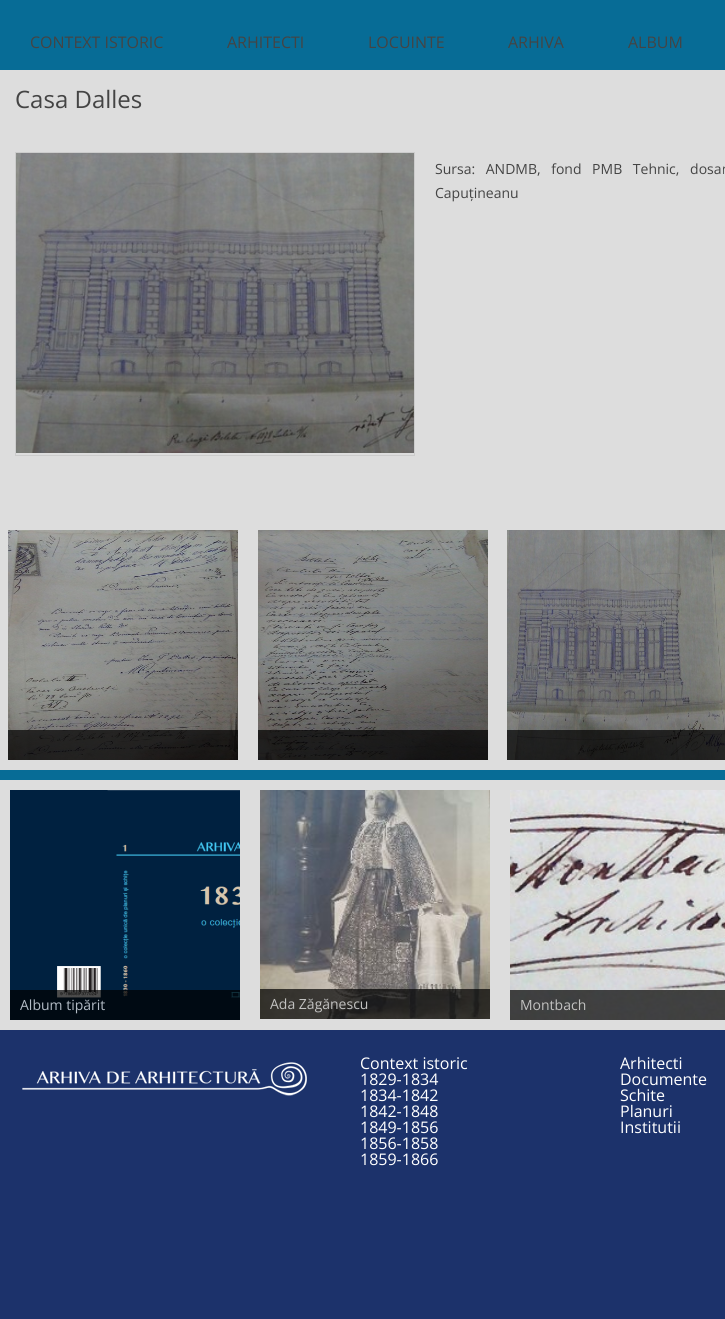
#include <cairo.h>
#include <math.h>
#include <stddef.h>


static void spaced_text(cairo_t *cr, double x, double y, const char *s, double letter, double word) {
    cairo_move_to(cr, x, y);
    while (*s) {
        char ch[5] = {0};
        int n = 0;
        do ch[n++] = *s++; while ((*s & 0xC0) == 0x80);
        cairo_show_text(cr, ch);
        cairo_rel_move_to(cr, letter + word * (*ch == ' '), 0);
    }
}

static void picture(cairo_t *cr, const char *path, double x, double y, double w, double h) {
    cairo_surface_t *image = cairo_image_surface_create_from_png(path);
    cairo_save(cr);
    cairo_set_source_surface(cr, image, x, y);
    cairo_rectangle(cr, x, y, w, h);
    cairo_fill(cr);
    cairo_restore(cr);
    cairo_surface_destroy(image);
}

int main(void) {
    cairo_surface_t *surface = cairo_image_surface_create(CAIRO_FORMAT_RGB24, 725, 1319);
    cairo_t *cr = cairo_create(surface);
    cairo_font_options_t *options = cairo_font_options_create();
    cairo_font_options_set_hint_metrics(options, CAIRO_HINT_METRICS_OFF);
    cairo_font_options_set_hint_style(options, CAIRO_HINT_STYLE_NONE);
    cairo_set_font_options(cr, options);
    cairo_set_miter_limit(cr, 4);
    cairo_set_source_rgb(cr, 0.031, 0.424, 0.588);
    cairo_paint(cr);
    cairo_select_font_face(cr, "Open Sans", CAIRO_FONT_SLANT_NORMAL, CAIRO_FONT_WEIGHT_NORMAL);
    cairo_set_font_size(cr, 16);
    cairo_set_source_rgb(cr, 0.267, 0.267, 0.267);
    cairo_move_to(cr, 30, 48);
    cairo_show_text(cr, "CONTEXT ISTORIC");
    cairo_move_to(cr, 227, 48);
    cairo_show_text(cr, "ARHITECTI");
    cairo_move_to(cr, 368, 48);
    cairo_show_text(cr, "LOCUINTE");
    cairo_move_to(cr, 508, 48);
    cairo_show_text(cr, "ARHIVA");
    cairo_move_to(cr, 628, 48);
    cairo_show_text(cr, "ALBUM");
    cairo_set_source_rgb(cr, 0.867, 0.867, 0.867);
    cairo_rectangle(cr, 0, 70, 725, 700);
    cairo_fill(cr);
    cairo_set_font_size(cr, 24);
    cairo_set_source_rgb(cr, 0.267, 0.267, 0.267);
    cairo_move_to(cr, 15, 108);
    cairo_show_text(cr, "Casa Dalles");
    cairo_rectangle(cr, 15.5, 152.5, 399, 303);
    cairo_set_source_rgb(cr, 0.8, 0.8, 0.8);
    cairo_set_line_width(cr, 1);
    cairo_stroke(cr);
    picture(cr, "img1.png", 16, 153, 398, 300);
    cairo_set_font_size(cr, 14);
    cairo_set_source_rgb(cr, 0.267, 0.267, 0.267);
    spaced_text(cr, 435, 174, "Sursa: ANDMB, fond PMB Tehnic, dosar", 0, 7);
    cairo_move_to(cr, 435, 198);
    cairo_show_text(cr, "Capuțineanu");
    picture(cr, "img2.png", 8, 530, 230, 230);
    cairo_set_source_rgba(cr, 0, 0, 0, 0.7);
    cairo_rectangle(cr, 8, 730, 230, 30);
    cairo_fill(cr);
    picture(cr, "img3.png", 258, 530, 230, 230);
    cairo_rectangle(cr, 258, 730, 230, 30);
    cairo_fill(cr);
    picture(cr, "img4.png", 507, 530, 218, 230);
    cairo_rectangle(cr, 507, 730, 218, 30);
    cairo_fill(cr);
    cairo_set_source_rgb(cr, 0.867, 0.867, 0.867);
    cairo_rectangle(cr, 0, 780, 725, 250);
    cairo_fill(cr);
    picture(cr, "img5.png", 10, 790, 230, 230);
    cairo_set_source_rgba(cr, 0, 0, 0, 0.7);
    cairo_rectangle(cr, 10, 990, 230, 30);
    cairo_fill(cr);
    cairo_set_source_rgb(cr, 0.702, 0.737, 0.776);
    cairo_move_to(cr, 20, 1010);
    cairo_show_text(cr, "Album tipărit");
    picture(cr, "img6.png", 260, 790, 230, 229);
    cairo_set_source_rgba(cr, 0, 0, 0, 0.7);
    cairo_rectangle(cr, 260, 989, 230, 30);
    cairo_fill(cr);
    cairo_set_source_rgb(cr, 0.761, 0.761, 0.757);
    cairo_move_to(cr, 270, 1009);
    cairo_show_text(cr, "Ada Zăgănescu");
    picture(cr, "img7.png", 510, 790, 215, 230);
    cairo_set_source_rgba(cr, 0, 0, 0, 0.7);
    cairo_rectangle(cr, 510, 990, 215, 30);
    cairo_fill(cr);
    cairo_set_source_rgb(cr, 0.761, 0.761, 0.757);
    cairo_move_to(cr, 520, 1010);
    cairo_show_text(cr, "Montbach");
    cairo_set_source_rgb(cr, 0.11, 0.196, 0.42);
    cairo_rectangle(cr, 0, 1030, 725, 289);
    cairo_fill(cr);
    picture(cr, "img8.png", 22, 1062, 285, 34);
    cairo_set_font_size(cr, 16);
    cairo_set_source_rgb(cr, 1, 1, 1);
    cairo_move_to(cr, 360, 1069);
    cairo_show_text(cr, "Context istoric");
    cairo_move_to(cr, 360, 1085);
    cairo_show_text(cr, "1829-1834");
    cairo_move_to(cr, 360, 1101);
    cairo_show_text(cr, "1834-1842");
    cairo_move_to(cr, 360, 1117);
    cairo_show_text(cr, "1842-1848");
    cairo_move_to(cr, 360, 1133);
    cairo_show_text(cr, "1849-1856");
    cairo_move_to(cr, 360, 1149);
    cairo_show_text(cr, "1856-1858");
    cairo_move_to(cr, 360, 1165);
    cairo_show_text(cr, "1859-1866");
    cairo_move_to(cr, 620, 1069);
    cairo_show_text(cr, "Arhitecti");
    cairo_move_to(cr, 620, 1085);
    cairo_show_text(cr, "Documente");
    cairo_move_to(cr, 620, 1101);
    cairo_show_text(cr, "Schite");
    cairo_move_to(cr, 620, 1117);
    cairo_show_text(cr, "Planuri");
    cairo_move_to(cr, 620, 1133);
    cairo_show_text(cr, "Institutii");
    cairo_surface_write_to_png(surface, "page.png");
    cairo_font_options_destroy(options);
    cairo_destroy(cr);
    cairo_surface_destroy(surface);
    return 0;
}
